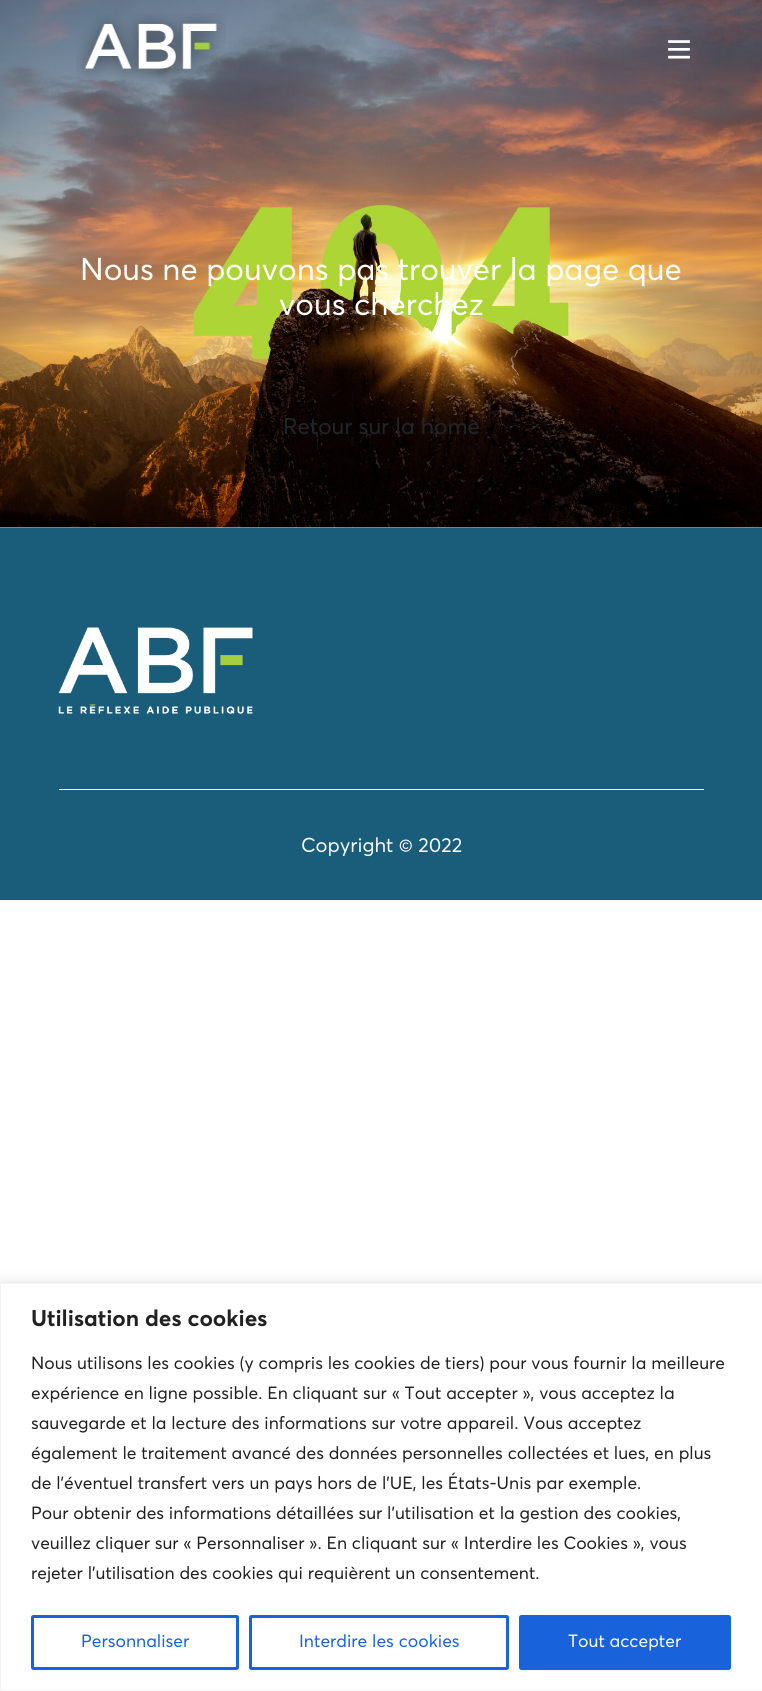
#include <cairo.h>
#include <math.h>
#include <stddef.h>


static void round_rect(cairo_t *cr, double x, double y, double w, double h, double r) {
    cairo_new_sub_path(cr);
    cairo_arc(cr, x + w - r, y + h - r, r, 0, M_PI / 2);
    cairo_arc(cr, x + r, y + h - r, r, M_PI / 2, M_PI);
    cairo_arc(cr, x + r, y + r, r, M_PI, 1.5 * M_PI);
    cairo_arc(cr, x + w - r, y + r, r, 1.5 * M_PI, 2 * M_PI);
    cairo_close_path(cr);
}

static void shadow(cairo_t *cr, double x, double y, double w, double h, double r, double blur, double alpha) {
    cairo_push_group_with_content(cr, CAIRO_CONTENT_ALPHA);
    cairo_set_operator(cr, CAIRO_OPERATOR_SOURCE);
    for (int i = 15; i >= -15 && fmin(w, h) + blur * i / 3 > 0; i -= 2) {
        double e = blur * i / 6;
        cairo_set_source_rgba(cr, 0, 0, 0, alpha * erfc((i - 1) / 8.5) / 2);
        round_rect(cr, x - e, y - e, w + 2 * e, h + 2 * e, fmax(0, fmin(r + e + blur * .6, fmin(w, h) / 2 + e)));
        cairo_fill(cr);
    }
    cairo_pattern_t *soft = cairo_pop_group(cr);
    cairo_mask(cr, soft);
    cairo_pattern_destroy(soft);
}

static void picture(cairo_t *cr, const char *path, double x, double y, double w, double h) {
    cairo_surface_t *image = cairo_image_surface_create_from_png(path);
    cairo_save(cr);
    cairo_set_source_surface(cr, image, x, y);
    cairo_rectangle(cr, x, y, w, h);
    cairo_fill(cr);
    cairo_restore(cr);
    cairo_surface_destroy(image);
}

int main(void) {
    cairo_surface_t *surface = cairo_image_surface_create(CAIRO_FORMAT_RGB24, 762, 1691);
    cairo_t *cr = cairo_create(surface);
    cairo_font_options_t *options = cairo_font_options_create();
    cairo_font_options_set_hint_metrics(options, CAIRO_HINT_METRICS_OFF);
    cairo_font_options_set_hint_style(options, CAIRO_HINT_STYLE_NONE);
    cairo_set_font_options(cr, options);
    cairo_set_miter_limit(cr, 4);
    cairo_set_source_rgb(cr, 1, 1, 1);
    cairo_paint(cr);
    picture(cr, "img3.png", 0, 0, 762, 528);
    picture(cr, "img1.png", 76, 13, 150, 72);
    picture(cr, "img2.png", 668, 40, 22, 19);
    cairo_select_font_face(cr, "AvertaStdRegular", CAIRO_FONT_SLANT_NORMAL, CAIRO_FONT_WEIGHT_NORMAL);
    cairo_set_font_size(cr, 31.25);
    cairo_set_source_rgb(cr, 1, 1, 1);
    cairo_move_to(cr, 80, 280);
    cairo_show_text(cr, "Nous ne pouvons pas trouver la page que");
    cairo_move_to(cr, 279, 315);
    cairo_show_text(cr, "vous cherchez");
    cairo_set_font_size(cr, 22.5);
    cairo_set_source_rgb(cr, 0.129, 0.145, 0.161);
    cairo_move_to(cr, 283, 434);
    cairo_show_text(cr, "Retour sur la home");
    cairo_set_source_rgb(cr, 0.102, 0.365, 0.482);
    cairo_rectangle(cr, 0, 528, 762, 372);
    cairo_fill(cr);
    picture(cr, "img4.png", 58, 627, 195, 87);
    cairo_set_source_rgb(cr, 1, 1, 1);
    cairo_rectangle(cr, 59, 789, 645, 1);
    cairo_fill(cr);
    cairo_set_font_size(cr, 20);
    cairo_set_source_rgb(cr, 0.969, 0.973, 0.984);
    cairo_move_to(cr, 301, 852);
    cairo_show_text(cr, "Copyright © 2022");
    cairo_set_source_rgb(cr, 0.675, 0.671, 0.671);
    shadow(cr, 0, 1281, 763, 409, 0, 6, 0.3);
    cairo_set_source_rgb(cr, 1, 1, 1);
    cairo_rectangle(cr, 0.5, 1283.5, 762, 407);
    cairo_fill_preserve(cr);
    cairo_set_source_rgb(cr, 0.957, 0.957, 0.957);
    cairo_set_line_width(cr, 1);
    cairo_stroke(cr);
    cairo_select_font_face(cr, "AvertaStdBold", CAIRO_FONT_SLANT_NORMAL, CAIRO_FONT_WEIGHT_BOLD);
    cairo_set_font_size(cr, 22.5);
    cairo_set_source_rgb(cr, 0.129, 0.129, 0.129);
    cairo_move_to(cr, 31, 1326);
    cairo_show_text(cr, "Utilisation des cookies");
    cairo_select_font_face(cr, "AvertaStdRegular", CAIRO_FONT_SLANT_NORMAL, CAIRO_FONT_WEIGHT_NORMAL);
    cairo_set_font_size(cr, 17.5);
    cairo_move_to(cr, 31, 1369);
    cairo_show_text(cr, "Nous utilisons les cookies (y compris les cookies de tiers) pour vous fournir la meilleure");
    cairo_move_to(cr, 31, 1399);
    cairo_show_text(cr, "expérience en ligne possible. En cliquant sur « Tout accepter », vous acceptez la");
    cairo_move_to(cr, 31, 1429);
    cairo_show_text(cr, "sauvegarde et la lecture des informations sur votre appareil. Vous acceptez");
    cairo_move_to(cr, 31, 1459);
    cairo_show_text(cr, "également le traitement avancé des données personnelles collectées et lues, en plus");
    cairo_move_to(cr, 31, 1489);
    cairo_show_text(cr, "de l’éventuel transfert vers un pays hors de l’UE, les États-Unis par exemple.");
    cairo_move_to(cr, 31, 1519);
    cairo_show_text(cr, "Pour obtenir des informations détaillées sur l’utilisation et la gestion des cookies,");
    cairo_move_to(cr, 31, 1549);
    cairo_show_text(cr, "veuillez cliquer sur « Personnaliser ». En cliquant sur « Interdire les Cookies », vous");
    cairo_move_to(cr, 31, 1579);
    cairo_show_text(cr, "rejeter l’utilisation des cookies qui requièrent un consentement.");
    round_rect(cr, 32.5, 1616.5, 205, 52, 1);
    cairo_set_source_rgb(cr, 0.094, 0.388, 0.863);
    cairo_set_line_width(cr, 3);
    cairo_stroke(cr);
    cairo_move_to(cr, 81, 1647);
    cairo_show_text(cr, "Personnaliser");
    round_rect(cr, 250.5, 1616.5, 257, 52, 1);
    cairo_stroke(cr);
    cairo_move_to(cr, 299, 1647);
    cairo_show_text(cr, "Interdire les cookies");
    round_rect(cr, 520.5, 1616.5, 209, 52, 1);
    cairo_fill_preserve(cr);
    cairo_stroke(cr);
    cairo_set_source_rgb(cr, 1, 1, 1);
    cairo_move_to(cr, 568, 1647);
    cairo_show_text(cr, "Tout accepter");
    cairo_surface_write_to_png(surface, "page.png");
    cairo_font_options_destroy(options);
    cairo_destroy(cr);
    cairo_surface_destroy(surface);
    return 0;
}
